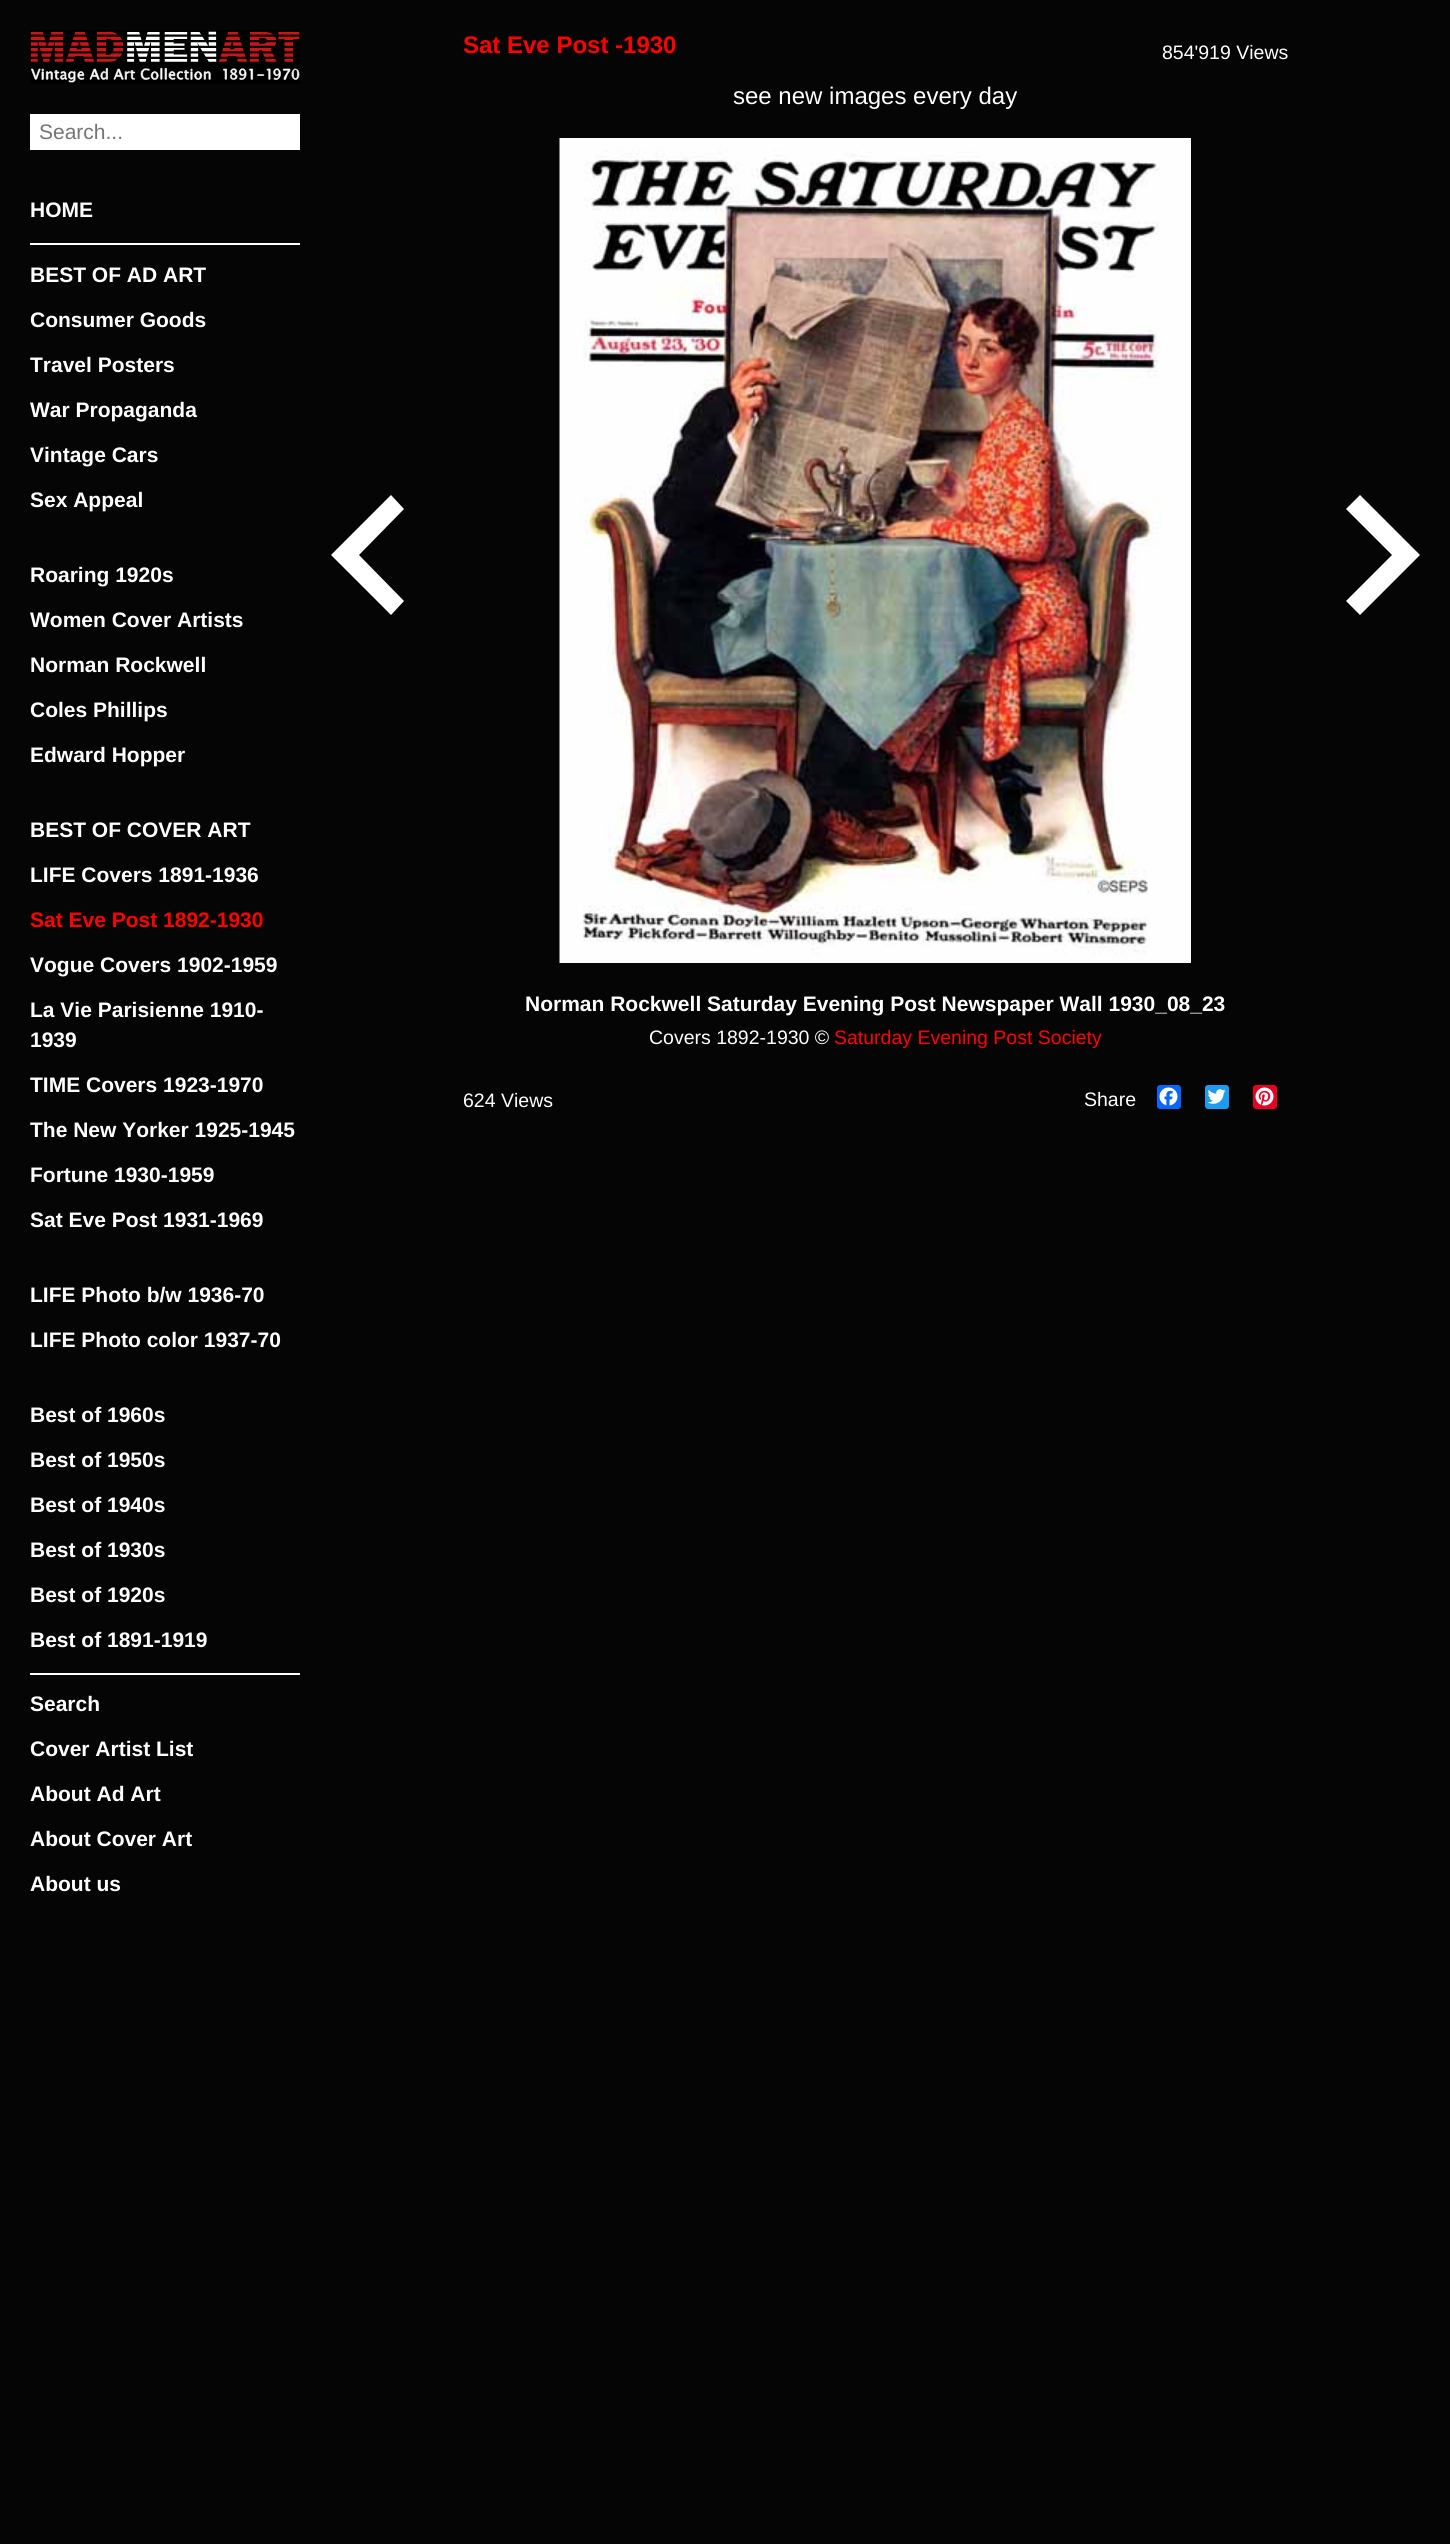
#include <cairo.h>
#include <math.h>
#include <stddef.h>


static void round_rect(cairo_t *cr, double x, double y, double w, double h, double r) {
    cairo_new_sub_path(cr);
    cairo_arc(cr, x + w - r, y + h - r, r, 0, M_PI / 2);
    cairo_arc(cr, x + r, y + h - r, r, M_PI / 2, M_PI);
    cairo_arc(cr, x + r, y + r, r, M_PI, 1.5 * M_PI);
    cairo_arc(cr, x + w - r, y + r, r, 1.5 * M_PI, 2 * M_PI);
    cairo_close_path(cr);
}

static void picture(cairo_t *cr, const char *path, double x, double y, double w, double h) {
    cairo_surface_t *image = cairo_image_surface_create_from_png(path);
    cairo_save(cr);
    cairo_set_source_surface(cr, image, x, y);
    cairo_rectangle(cr, x, y, w, h);
    cairo_fill(cr);
    cairo_restore(cr);
    cairo_surface_destroy(image);
}

int main(void) {
    cairo_surface_t *surface = cairo_image_surface_create(CAIRO_FORMAT_RGB24, 1450, 2544);
    cairo_t *cr = cairo_create(surface);
    cairo_font_options_t *options = cairo_font_options_create();
    cairo_font_options_set_hint_metrics(options, CAIRO_HINT_METRICS_OFF);
    cairo_font_options_set_hint_style(options, CAIRO_HINT_STYLE_NONE);
    cairo_set_font_options(cr, options);
    cairo_set_miter_limit(cr, 4);
    cairo_set_source_rgb(cr, 0.02, 0.02, 0.02);
    cairo_paint(cr);
    picture(cr, "img1.png", 30, 30, 270, 54);
    cairo_set_source_rgb(cr, 1, 1, 1);
    cairo_rectangle(cr, 30, 114, 270, 36);
    cairo_fill(cr);
    cairo_select_font_face(cr, "Liberation Sans", CAIRO_FONT_SLANT_NORMAL, CAIRO_FONT_WEIGHT_NORMAL);
    cairo_set_font_size(cr, 21);
    cairo_set_source_rgb(cr, 0.459, 0.459, 0.459);
    cairo_move_to(cr, 39, 139);
    cairo_show_text(cr, "Search...");
    cairo_set_source_rgb(cr, 1, 1, 1);
    cairo_rectangle(cr, 30, 243, 270, 2);
    cairo_fill(cr);
    cairo_select_font_face(cr, "Liberation Sans", CAIRO_FONT_SLANT_NORMAL, CAIRO_FONT_WEIGHT_BOLD);
    cairo_move_to(cr, 30, 217);
    cairo_show_text(cr, "HOME");
    cairo_move_to(cr, 30, 282);
    cairo_show_text(cr, "BEST OF AD ART");
    cairo_move_to(cr, 30, 327);
    cairo_show_text(cr, "Consumer Goods");
    cairo_move_to(cr, 30, 372);
    cairo_show_text(cr, "Travel Posters");
    cairo_move_to(cr, 30, 417);
    cairo_show_text(cr, "War Propaganda");
    cairo_move_to(cr, 30, 462);
    cairo_show_text(cr, "Vintage Cars");
    cairo_move_to(cr, 30, 507);
    cairo_show_text(cr, "Sex Appeal");
    cairo_move_to(cr, 30, 582);
    cairo_show_text(cr, "Roaring 1920s");
    cairo_move_to(cr, 30, 627);
    cairo_show_text(cr, "Women Cover Artists");
    cairo_move_to(cr, 30, 672);
    cairo_show_text(cr, "Norman Rockwell");
    cairo_move_to(cr, 30, 717);
    cairo_show_text(cr, "Coles Phillips");
    cairo_move_to(cr, 30, 762);
    cairo_show_text(cr, "Edward Hopper");
    cairo_move_to(cr, 30, 837);
    cairo_show_text(cr, "BEST OF COVER ART");
    cairo_move_to(cr, 30, 882);
    cairo_show_text(cr, "LIFE Covers 1891-1936");
    cairo_set_source_rgb(cr, 1, 0, 0);
    cairo_move_to(cr, 30, 927);
    cairo_show_text(cr, "Sat Eve Post 1892-1930");
    cairo_set_source_rgb(cr, 1, 1, 1);
    cairo_move_to(cr, 30, 972);
    cairo_show_text(cr, "Vogue Covers 1902-1959");
    cairo_move_to(cr, 30, 1017);
    cairo_show_text(cr, "La Vie Parisienne 1910-");
    cairo_move_to(cr, 30, 1047);
    cairo_show_text(cr, "1939");
    cairo_move_to(cr, 30, 1092);
    cairo_show_text(cr, "TIME Covers 1923-1970");
    cairo_move_to(cr, 30, 1137);
    cairo_show_text(cr, "The New Yorker 1925-1945");
    cairo_move_to(cr, 30, 1182);
    cairo_show_text(cr, "Fortune 1930-1959");
    cairo_move_to(cr, 30, 1227);
    cairo_show_text(cr, "Sat Eve Post 1931-1969");
    cairo_move_to(cr, 30, 1302);
    cairo_show_text(cr, "LIFE Photo b/w 1936-70");
    cairo_move_to(cr, 30, 1347);
    cairo_show_text(cr, "LIFE Photo color 1937-70");
    cairo_move_to(cr, 30, 1422);
    cairo_show_text(cr, "Best of 1960s");
    cairo_move_to(cr, 30, 1467);
    cairo_show_text(cr, "Best of 1950s");
    cairo_move_to(cr, 30, 1512);
    cairo_show_text(cr, "Best of 1940s");
    cairo_move_to(cr, 30, 1557);
    cairo_show_text(cr, "Best of 1930s");
    cairo_move_to(cr, 30, 1602);
    cairo_show_text(cr, "Best of 1920s");
    cairo_rectangle(cr, 30, 1673, 270, 2);
    cairo_fill(cr);
    cairo_move_to(cr, 30, 1647);
    cairo_show_text(cr, "Best of 1891-1919");
    cairo_move_to(cr, 30, 1711);
    cairo_show_text(cr, "Search");
    cairo_move_to(cr, 30, 1756);
    cairo_show_text(cr, "Cover Artist List");
    cairo_move_to(cr, 30, 1801);
    cairo_show_text(cr, "About Ad Art");
    cairo_move_to(cr, 30, 1846);
    cairo_show_text(cr, "About Cover Art");
    cairo_move_to(cr, 30, 1891);
    cairo_show_text(cr, "About us");
    cairo_set_font_size(cr, 24);
    cairo_set_source_rgb(cr, 1, 0, 0);
    cairo_move_to(cr, 463, 53);
    cairo_show_text(cr, "Sat Eve Post -1930");
    cairo_select_font_face(cr, "Liberation Sans", CAIRO_FONT_SLANT_NORMAL, CAIRO_FONT_WEIGHT_NORMAL);
    cairo_set_font_size(cr, 19.5);
    cairo_set_source_rgb(cr, 1, 1, 1);
    cairo_move_to(cr, 1162, 59);
    cairo_show_text(cr, "854'919 Views");
    cairo_set_font_size(cr, 24);
    cairo_move_to(cr, 733, 104);
    cairo_show_text(cr, "see new images every day");
    picture(cr, "img2.png", 559, 138, 632, 825);
    cairo_select_font_face(cr, "Liberation Sans", CAIRO_FONT_SLANT_NORMAL, CAIRO_FONT_WEIGHT_BOLD);
    cairo_set_font_size(cr, 21);
    cairo_move_to(cr, 525, 1011);
    cairo_show_text(cr, "Norman Rockwell Saturday Evening Post Newspaper Wall 1930_08_23");
    cairo_select_font_face(cr, "Liberation Sans", CAIRO_FONT_SLANT_NORMAL, CAIRO_FONT_WEIGHT_NORMAL);
    cairo_set_font_size(cr, 19.5);
    cairo_move_to(cr, 649, 1044);
    cairo_show_text(cr, "Covers 1892-1930 ©");
    cairo_set_source_rgb(cr, 1, 0, 0);
    cairo_move_to(cr, 834, 1044);
    cairo_show_text(cr, "Saturday Evening Post Society");
    cairo_set_source_rgb(cr, 1, 1, 1);
    cairo_move_to(cr, 463, 1107);
    cairo_show_text(cr, "624 Views");
    cairo_move_to(cr, 1084, 1106);
    cairo_show_text(cr, "Share");
    cairo_set_source_rgb(cr, 0.031, 0.4, 1);
    round_rect(cr, 1157, 1085, 24, 24, 3);
    cairo_fill(cr);
    picture(cr, "img3.png", 1159, 1087, 19, 19);
    cairo_set_source_rgb(cr, 0.114, 0.608, 0.941);
    round_rect(cr, 1205, 1085, 24, 24, 3);
    cairo_fill(cr);
    picture(cr, "img4.png", 1207, 1089, 19, 15);
    cairo_set_source_rgb(cr, 0.902, 0, 0.137);
    round_rect(cr, 1253, 1085, 24, 24, 3);
    cairo_fill(cr);
    picture(cr, "img5.png", 1255, 1087, 19, 19);
    cairo_set_source_rgb(cr, 1, 1, 1);
    cairo_new_path(cr);
    cairo_move_to(cr, 391, 615);
    cairo_line_to(cr, 404, 601);
    cairo_line_to(cr, 359, 555);
    cairo_line_to(cr, 404, 509);
    cairo_line_to(cr, 391, 495);
    cairo_line_to(cr, 331, 555);
    cairo_close_path(cr);
    cairo_fill(cr);
    cairo_new_path(cr);
    cairo_move_to(cr, 1360, 495);
    cairo_line_to(cr, 1346, 509);
    cairo_line_to(cr, 1392, 555);
    cairo_line_to(cr, 1346, 601);
    cairo_line_to(cr, 1360, 615);
    cairo_line_to(cr, 1420, 555);
    cairo_close_path(cr);
    cairo_fill(cr);
    cairo_surface_write_to_png(surface, "page.png");
    cairo_font_options_destroy(options);
    cairo_destroy(cr);
    cairo_surface_destroy(surface);
    return 0;
}
